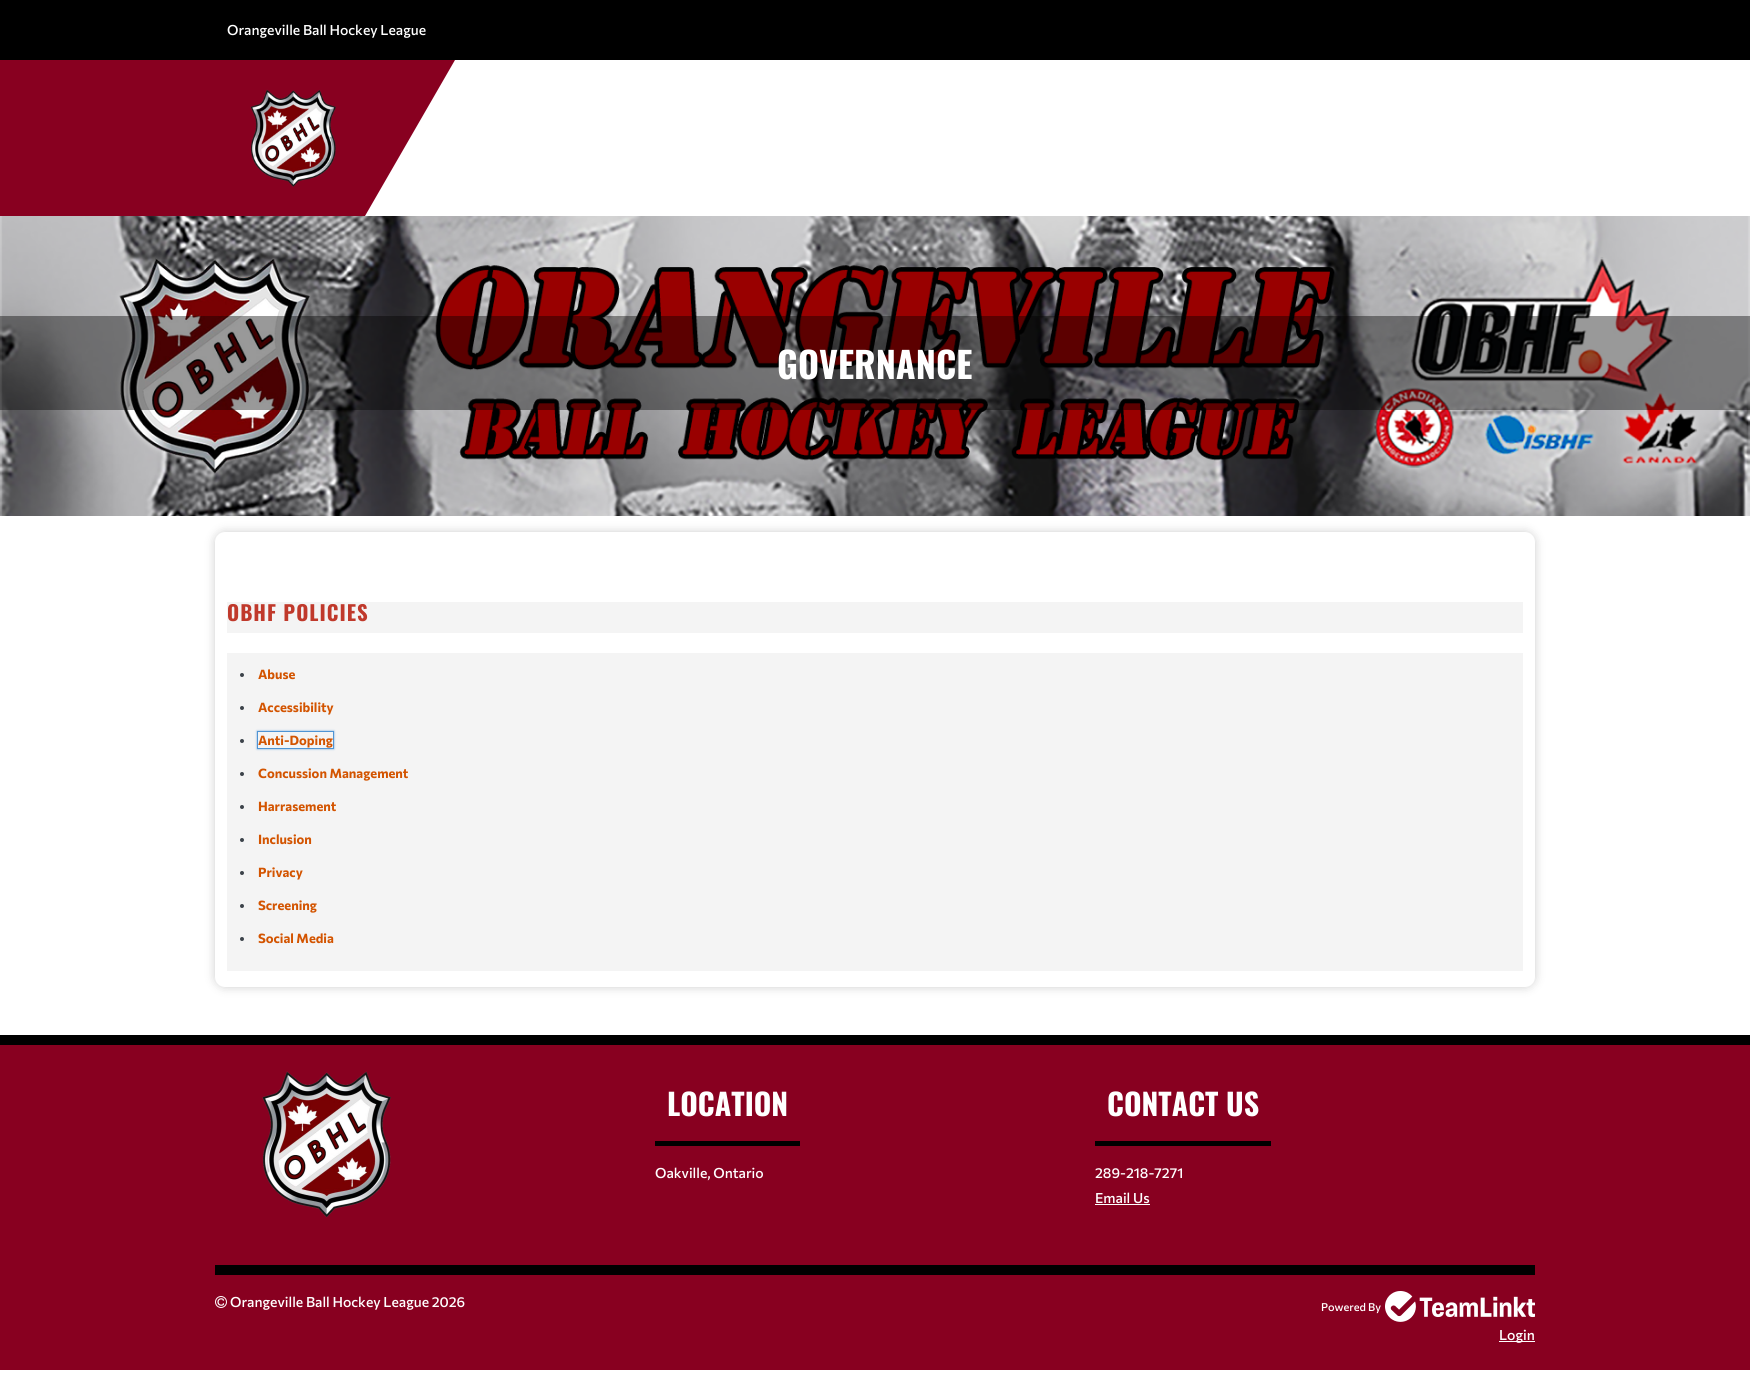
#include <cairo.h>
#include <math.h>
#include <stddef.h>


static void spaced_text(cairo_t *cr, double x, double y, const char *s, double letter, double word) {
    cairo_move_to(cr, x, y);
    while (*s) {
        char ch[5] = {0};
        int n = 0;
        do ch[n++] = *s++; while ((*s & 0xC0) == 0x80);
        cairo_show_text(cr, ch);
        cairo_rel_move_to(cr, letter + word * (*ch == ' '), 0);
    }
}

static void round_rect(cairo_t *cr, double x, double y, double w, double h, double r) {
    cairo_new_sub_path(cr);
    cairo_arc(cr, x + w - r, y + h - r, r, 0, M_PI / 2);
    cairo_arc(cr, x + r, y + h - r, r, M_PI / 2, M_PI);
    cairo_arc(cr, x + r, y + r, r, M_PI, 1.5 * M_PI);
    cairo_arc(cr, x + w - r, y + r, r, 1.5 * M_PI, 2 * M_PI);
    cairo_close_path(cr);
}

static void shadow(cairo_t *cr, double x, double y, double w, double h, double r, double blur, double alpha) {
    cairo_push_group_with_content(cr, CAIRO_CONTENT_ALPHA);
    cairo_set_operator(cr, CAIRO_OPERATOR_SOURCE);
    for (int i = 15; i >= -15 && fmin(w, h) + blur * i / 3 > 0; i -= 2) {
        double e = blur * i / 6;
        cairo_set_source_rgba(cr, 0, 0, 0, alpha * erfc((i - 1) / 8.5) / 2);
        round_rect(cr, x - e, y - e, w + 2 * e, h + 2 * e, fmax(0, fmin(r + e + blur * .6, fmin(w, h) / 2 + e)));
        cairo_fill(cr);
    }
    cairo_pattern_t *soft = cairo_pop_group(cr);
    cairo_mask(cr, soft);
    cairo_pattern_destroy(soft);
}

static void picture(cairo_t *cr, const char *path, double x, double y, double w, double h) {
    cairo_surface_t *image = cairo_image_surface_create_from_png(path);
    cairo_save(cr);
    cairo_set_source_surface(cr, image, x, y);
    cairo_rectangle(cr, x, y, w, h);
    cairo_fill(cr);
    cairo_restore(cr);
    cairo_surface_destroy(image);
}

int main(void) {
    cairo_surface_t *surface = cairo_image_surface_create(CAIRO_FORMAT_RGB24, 1750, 1386);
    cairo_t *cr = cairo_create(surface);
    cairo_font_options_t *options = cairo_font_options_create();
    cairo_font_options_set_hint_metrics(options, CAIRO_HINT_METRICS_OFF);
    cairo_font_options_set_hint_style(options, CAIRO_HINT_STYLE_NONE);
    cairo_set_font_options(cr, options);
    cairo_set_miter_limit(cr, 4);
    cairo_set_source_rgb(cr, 1, 1, 1);
    cairo_paint(cr);
    cairo_set_source_rgb(cr, 0, 0, 0);
    cairo_rectangle(cr, 0, 0, 1750, 60);
    cairo_fill(cr);
    cairo_select_font_face(cr, "Commissioner Medium", CAIRO_FONT_SLANT_NORMAL, CAIRO_FONT_WEIGHT_NORMAL);
    cairo_set_font_size(cr, 14);
    cairo_set_source_rgb(cr, 1, 1, 1);
    cairo_move_to(cr, 227, 35);
    cairo_show_text(cr, "Orangeville Ball Hockey League");
    cairo_set_source_rgb(cr, 0.533, 0, 0.125);
    cairo_new_path(cr);
    cairo_move_to(cr, -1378, 60);
    cairo_line_to(cr, 455, 60);
    cairo_line_to(cr, 365, 216);
    cairo_line_to(cr, -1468, 216);
    cairo_close_path(cr);
    cairo_fill(cr);
    picture(cr, "img1.png", 250, 89, 86, 98);
    picture(cr, "img2.png", 0, 216, 1750, 300);
    cairo_set_source_rgba(cr, 0, 0, 0, 0.4);
    cairo_rectangle(cr, 0, 316, 1750, 94);
    cairo_fill(cr);
    cairo_select_font_face(cr, "Oswald", CAIRO_FONT_SLANT_NORMAL, CAIRO_FONT_WEIGHT_BOLD);
    cairo_set_font_size(cr, 36);
    cairo_set_source_rgb(cr, 1, 1, 1);
    cairo_move_to(cr, 777, 379);
    cairo_show_text(cr, "GOVERNANCE");
    cairo_set_source_rgb(cr, 0, 0, 0);
    shadow(cr, 215, 532, 1320, 455, 10, 5, 0.2);
    cairo_set_source_rgb(cr, 1, 1, 1);
    round_rect(cr, 215, 532, 1320, 455, 10);
    cairo_fill(cr);
    cairo_set_source_rgb(cr, 0.957, 0.957, 0.957);
    cairo_rectangle(cr, 227, 602, 1296, 31);
    cairo_fill(cr);
    cairo_set_font_size(cr, 20.75);
    cairo_set_source_rgb(cr, 0.753, 0.224, 0.169);
    spaced_text(cr, 227, 621, "OBHF POLICIES", 1, 0);
    cairo_set_source_rgb(cr, 0.957, 0.957, 0.957);
    cairo_rectangle(cr, 227, 653, 1296, 318);
    cairo_fill(cr);
    cairo_set_source_rgb(cr, 0.235, 0.263, 0.29);
    cairo_arc(cr, 242, 675, 2, 0, 2 * M_PI);
    cairo_fill(cr);
    cairo_select_font_face(cr, "Commissioner", CAIRO_FONT_SLANT_NORMAL, CAIRO_FONT_WEIGHT_BOLD);
    cairo_set_font_size(cr, 13);
    cairo_set_source_rgb(cr, 0.827, 0.329, 0);
    cairo_move_to(cr, 258, 679);
    cairo_show_text(cr, "Abuse");
    cairo_set_source_rgb(cr, 0.235, 0.263, 0.29);
    cairo_new_path(cr);
    cairo_arc(cr, 242, 708, 2, 0, 2 * M_PI);
    cairo_fill(cr);
    cairo_set_source_rgb(cr, 0.827, 0.329, 0);
    cairo_move_to(cr, 258, 712);
    cairo_show_text(cr, "Accessibility");
    cairo_set_source_rgb(cr, 0.235, 0.263, 0.29);
    cairo_new_path(cr);
    cairo_arc(cr, 242, 741, 2, 0, 2 * M_PI);
    cairo_fill(cr);
    cairo_save(cr);
    cairo_set_fill_rule(cr, CAIRO_FILL_RULE_EVEN_ODD);
    cairo_new_path(cr);
    cairo_move_to(cr, 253, 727);
    cairo_line_to(cr, 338, 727);
    cairo_line_to(cr, 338, 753);
    cairo_line_to(cr, 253, 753);
    cairo_close_path(cr);
    cairo_move_to(cr, 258, 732);
    cairo_line_to(cr, 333, 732);
    cairo_line_to(cr, 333, 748);
    cairo_line_to(cr, 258, 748);
    cairo_close_path(cr);
    cairo_clip(cr);
    cairo_set_source_rgb(cr, 0.31, 0.58, 0.831);
    shadow(cr, 257, 731, 77, 18, 0, 1, 0.8);
    cairo_restore(cr);
    cairo_rectangle(cr, 257.5, 731.5, 76, 17);
    cairo_set_source_rgb(cr, 0.31, 0.58, 0.831);
    cairo_set_line_width(cr, 1);
    cairo_stroke(cr);
    cairo_set_source_rgb(cr, 0.827, 0.329, 0);
    cairo_move_to(cr, 258, 745);
    cairo_show_text(cr, "Anti-Doping");
    cairo_set_source_rgb(cr, 0.235, 0.263, 0.29);
    cairo_new_path(cr);
    cairo_arc(cr, 242, 774, 2, 0, 2 * M_PI);
    cairo_fill(cr);
    cairo_set_source_rgb(cr, 0.827, 0.329, 0);
    cairo_move_to(cr, 258, 778);
    cairo_show_text(cr, "Concussion Management");
    cairo_set_source_rgb(cr, 0.235, 0.263, 0.29);
    cairo_new_path(cr);
    cairo_arc(cr, 242, 807, 2, 0, 2 * M_PI);
    cairo_fill(cr);
    cairo_set_source_rgb(cr, 0.827, 0.329, 0);
    cairo_move_to(cr, 258, 811);
    cairo_show_text(cr, "Harrasement");
    cairo_set_source_rgb(cr, 0.235, 0.263, 0.29);
    cairo_new_path(cr);
    cairo_arc(cr, 242, 840, 2, 0, 2 * M_PI);
    cairo_fill(cr);
    cairo_set_source_rgb(cr, 0.827, 0.329, 0);
    cairo_move_to(cr, 258, 844);
    cairo_show_text(cr, "Inclusion");
    cairo_set_source_rgb(cr, 0.235, 0.263, 0.29);
    cairo_new_path(cr);
    cairo_arc(cr, 242, 873, 2, 0, 2 * M_PI);
    cairo_fill(cr);
    cairo_set_source_rgb(cr, 0.827, 0.329, 0);
    cairo_move_to(cr, 258, 877);
    cairo_show_text(cr, "Privacy");
    cairo_set_source_rgb(cr, 0.235, 0.263, 0.29);
    cairo_new_path(cr);
    cairo_arc(cr, 242, 906, 2, 0, 2 * M_PI);
    cairo_fill(cr);
    cairo_set_source_rgb(cr, 0.827, 0.329, 0);
    cairo_move_to(cr, 258, 910);
    cairo_show_text(cr, "Screening");
    cairo_set_source_rgb(cr, 0.235, 0.263, 0.29);
    cairo_new_path(cr);
    cairo_arc(cr, 242, 939, 2, 0, 2 * M_PI);
    cairo_fill(cr);
    cairo_set_source_rgb(cr, 0.827, 0.329, 0);
    cairo_move_to(cr, 258, 943);
    cairo_show_text(cr, "Social Media");
    cairo_set_source_rgb(cr, 0.533, 0, 0.125);
    cairo_rectangle(cr, 0, 1045, 1750, 325);
    cairo_fill(cr);
    cairo_set_source_rgb(cr, 0, 0, 0);
    cairo_rectangle(cr, 0, 1035, 1750, 10);
    cairo_fill(cr);
    cairo_rectangle(cr, 215, 1265, 1320, 10);
    cairo_fill(cr);
    picture(cr, "img3.png", 262, 1071, 129, 147);
    cairo_rectangle(cr, 655, 1141, 145, 5);
    cairo_fill(cr);
    cairo_select_font_face(cr, "Oswald", CAIRO_FONT_SLANT_NORMAL, CAIRO_FONT_WEIGHT_BOLD);
    cairo_set_font_size(cr, 30);
    cairo_set_source_rgb(cr, 1, 1, 1);
    cairo_move_to(cr, 667, 1116);
    cairo_show_text(cr, "LOCATION");
    cairo_select_font_face(cr, "Commissioner Medium", CAIRO_FONT_SLANT_NORMAL, CAIRO_FONT_WEIGHT_NORMAL);
    cairo_set_font_size(cr, 14);
    cairo_move_to(cr, 655, 1178);
    cairo_show_text(cr, "Oakville, Ontario");
    cairo_set_source_rgb(cr, 0, 0, 0);
    cairo_rectangle(cr, 1095, 1141, 176, 5);
    cairo_fill(cr);
    cairo_select_font_face(cr, "Oswald", CAIRO_FONT_SLANT_NORMAL, CAIRO_FONT_WEIGHT_BOLD);
    cairo_set_font_size(cr, 30);
    cairo_set_source_rgb(cr, 1, 1, 1);
    cairo_move_to(cr, 1107, 1116);
    cairo_show_text(cr, "CONTACT US");
    cairo_select_font_face(cr, "Commissioner Medium", CAIRO_FONT_SLANT_NORMAL, CAIRO_FONT_WEIGHT_NORMAL);
    cairo_set_font_size(cr, 14);
    cairo_move_to(cr, 1095, 1178);
    cairo_show_text(cr, "289-218-7271");
    cairo_move_to(cr, 1095, 1203);
    cairo_show_text(cr, "Email Us");
    cairo_rectangle(cr, 1095, 1204, 55, 1);
    cairo_fill(cr);
    picture(cr, "img4.png", 215, 1296, 12, 12);
    cairo_move_to(cr, 230, 1307);
    cairo_show_text(cr, "Orangeville Ball Hockey League 2026");
    cairo_set_font_size(cr, 11);
    cairo_move_to(cr, 1321, 1311);
    cairo_show_text(cr, "Powered By");
    picture(cr, "img5.png", 1385, 1291, 150, 31);
    cairo_rectangle(cr, 1499, 1341, 36, 1);
    cairo_fill(cr);
    cairo_set_font_size(cr, 14);
    cairo_move_to(cr, 1499, 1340);
    cairo_show_text(cr, "Login");
    cairo_surface_write_to_png(surface, "page.png");
    cairo_font_options_destroy(options);
    cairo_destroy(cr);
    cairo_surface_destroy(surface);
    return 0;
}
